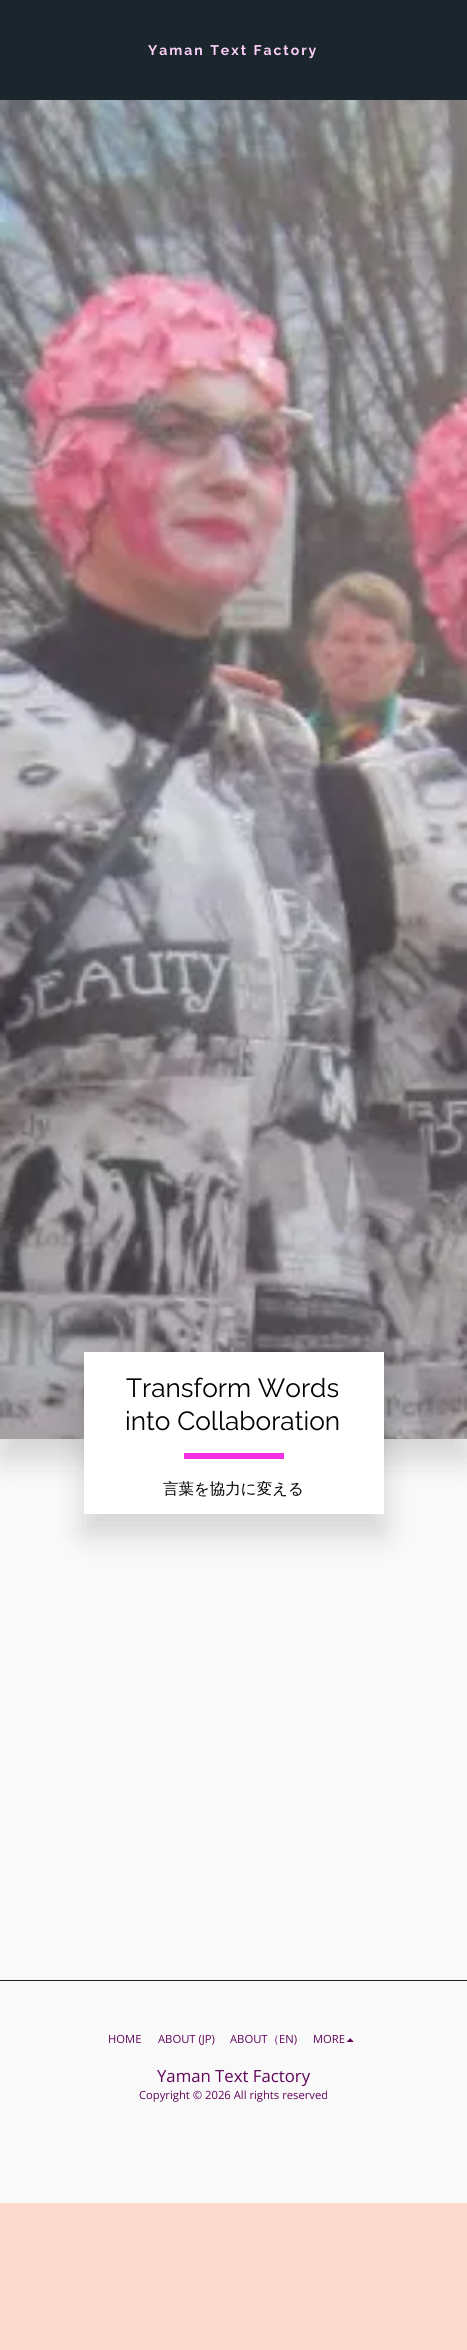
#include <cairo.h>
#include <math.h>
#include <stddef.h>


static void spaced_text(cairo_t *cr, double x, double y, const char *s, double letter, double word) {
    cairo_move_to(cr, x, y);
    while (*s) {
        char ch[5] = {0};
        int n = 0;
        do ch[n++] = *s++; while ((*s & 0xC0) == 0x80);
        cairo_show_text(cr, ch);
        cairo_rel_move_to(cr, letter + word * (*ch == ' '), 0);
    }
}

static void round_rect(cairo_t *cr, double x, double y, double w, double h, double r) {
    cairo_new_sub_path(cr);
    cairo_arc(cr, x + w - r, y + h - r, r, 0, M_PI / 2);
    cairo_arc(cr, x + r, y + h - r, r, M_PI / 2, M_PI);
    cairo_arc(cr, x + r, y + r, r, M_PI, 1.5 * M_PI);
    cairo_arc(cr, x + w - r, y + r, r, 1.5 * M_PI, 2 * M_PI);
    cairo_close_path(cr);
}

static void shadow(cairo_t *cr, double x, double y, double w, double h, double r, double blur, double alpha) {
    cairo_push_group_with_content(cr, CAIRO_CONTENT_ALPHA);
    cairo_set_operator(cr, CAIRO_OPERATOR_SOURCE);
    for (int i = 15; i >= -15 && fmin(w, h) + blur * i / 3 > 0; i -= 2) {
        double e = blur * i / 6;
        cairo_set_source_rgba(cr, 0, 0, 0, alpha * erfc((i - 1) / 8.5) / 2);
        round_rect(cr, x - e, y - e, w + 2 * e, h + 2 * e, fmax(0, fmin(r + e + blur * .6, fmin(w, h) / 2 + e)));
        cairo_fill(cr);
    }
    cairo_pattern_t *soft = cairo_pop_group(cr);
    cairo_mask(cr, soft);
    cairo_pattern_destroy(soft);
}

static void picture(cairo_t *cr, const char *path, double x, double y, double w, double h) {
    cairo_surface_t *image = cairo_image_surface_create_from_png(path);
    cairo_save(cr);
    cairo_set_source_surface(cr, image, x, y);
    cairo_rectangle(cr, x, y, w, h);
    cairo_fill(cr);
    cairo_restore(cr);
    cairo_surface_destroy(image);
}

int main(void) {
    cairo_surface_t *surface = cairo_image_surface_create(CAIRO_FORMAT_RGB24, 467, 2350);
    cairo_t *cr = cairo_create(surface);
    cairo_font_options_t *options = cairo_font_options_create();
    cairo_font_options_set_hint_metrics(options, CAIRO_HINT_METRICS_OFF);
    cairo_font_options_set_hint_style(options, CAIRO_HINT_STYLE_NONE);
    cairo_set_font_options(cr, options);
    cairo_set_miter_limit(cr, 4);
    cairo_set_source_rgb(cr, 0.988, 0.855, 0.808);
    cairo_paint(cr);
    cairo_set_source_rgb(cr, 0.976, 0.976, 0.976);
    cairo_rectangle(cr, 0, 1439, 467, 541);
    cairo_fill(cr);
    cairo_set_source_rgb(cr, 0, 0, 0);
    shadow(cr, 0, 120, 467, 1339, 0, 15, 0.15);
    cairo_set_source_rgb(cr, 0.106, 0.149, 0.173);
    cairo_rectangle(cr, 0, 0, 467, 100);
    cairo_fill(cr);
    cairo_select_font_face(cr, "Raleway", CAIRO_FONT_SLANT_NORMAL, CAIRO_FONT_WEIGHT_BOLD);
    cairo_set_font_size(cr, 14);
    cairo_set_source_rgb(cr, 0.988, 0.812, 0.976);
    spaced_text(cr, 148, 55, "Yaman Text Factory", 2, 0);
    picture(cr, "img1.png", 0, 100, 467, 1339);
    cairo_set_source_rgb(cr, 0, 0, 0);
    shadow(cr, 84, 1372, 300, 162, 0, 15, 0.15);
    cairo_set_source_rgb(cr, 1, 1, 1);
    cairo_rectangle(cr, 84, 1352, 300, 162);
    cairo_fill(cr);
    cairo_select_font_face(cr, "Raleway", CAIRO_FONT_SLANT_NORMAL, CAIRO_FONT_WEIGHT_NORMAL);
    cairo_set_font_size(cr, 26.25);
    cairo_set_source_rgb(cr, 0, 0, 0);
    cairo_move_to(cr, 126, 1397);
    cairo_show_text(cr, "Transform Words");
    cairo_move_to(cr, 125, 1430);
    cairo_show_text(cr, "into Collaboration");
    cairo_set_source_rgb(cr, 0.957, 0.188, 0.898);
    cairo_rectangle(cr, 184, 1453, 100, 6);
    cairo_fill(cr);
    cairo_select_font_face(cr, "WenQuanYi Zen Hei Medium", CAIRO_FONT_SLANT_NORMAL, CAIRO_FONT_WEIGHT_NORMAL);
    cairo_set_font_size(cr, 15.5);
    cairo_set_source_rgb(cr, 0, 0, 0);
    cairo_move_to(cr, 163, 1494);
    cairo_show_text(cr, "言葉を協力に変える");
    cairo_set_source_rgb(cr, 0.976, 0.976, 0.976);
    cairo_rectangle(cr, 0, 1981, 467, 222);
    cairo_fill(cr);
    cairo_set_source_rgb(cr, 0.106, 0.149, 0.173);
    cairo_rectangle(cr, 0, 1980, 467, 1);
    cairo_fill(cr);
    cairo_select_font_face(cr, "Open Sans", CAIRO_FONT_SLANT_NORMAL, CAIRO_FONT_WEIGHT_NORMAL);
    cairo_set_font_size(cr, 11.25);
    cairo_set_source_rgb(cr, 0.38, 0.02, 0.353);
    cairo_move_to(cr, 108, 2043);
    cairo_show_text(cr, "HOME");
    cairo_move_to(cr, 158, 2043);
    cairo_show_text(cr, "ABOUT (JP)");
    cairo_move_to(cr, 230, 2043);
    cairo_show_text(cr, "ABOUT");
    cairo_select_font_face(cr, "WenQuanYi Zen Hei Medium", CAIRO_FONT_SLANT_NORMAL, CAIRO_FONT_WEIGHT_NORMAL);
    cairo_move_to(cr, 268, 2043);
    cairo_show_text(cr, "（");
    cairo_select_font_face(cr, "Open Sans", CAIRO_FONT_SLANT_NORMAL, CAIRO_FONT_WEIGHT_NORMAL);
    cairo_move_to(cr, 279, 2043);
    cairo_show_text(cr, "EN)");
    cairo_move_to(cr, 313, 2043);
    cairo_show_text(cr, "MORE");
    picture(cr, "img2.png", 347, 2038, 7, 4);
    cairo_set_font_size(cr, 16.75);
    cairo_move_to(cr, 157, 2082);
    cairo_show_text(cr, "Yaman Text Factory");
    cairo_set_font_size(cr, 11.25);
    cairo_move_to(cr, 139, 2099);
    cairo_show_text(cr, "Copyright © 2026 All rights reserved");
    cairo_surface_write_to_png(surface, "page.png");
    cairo_font_options_destroy(options);
    cairo_destroy(cr);
    cairo_surface_destroy(surface);
    return 0;
}
